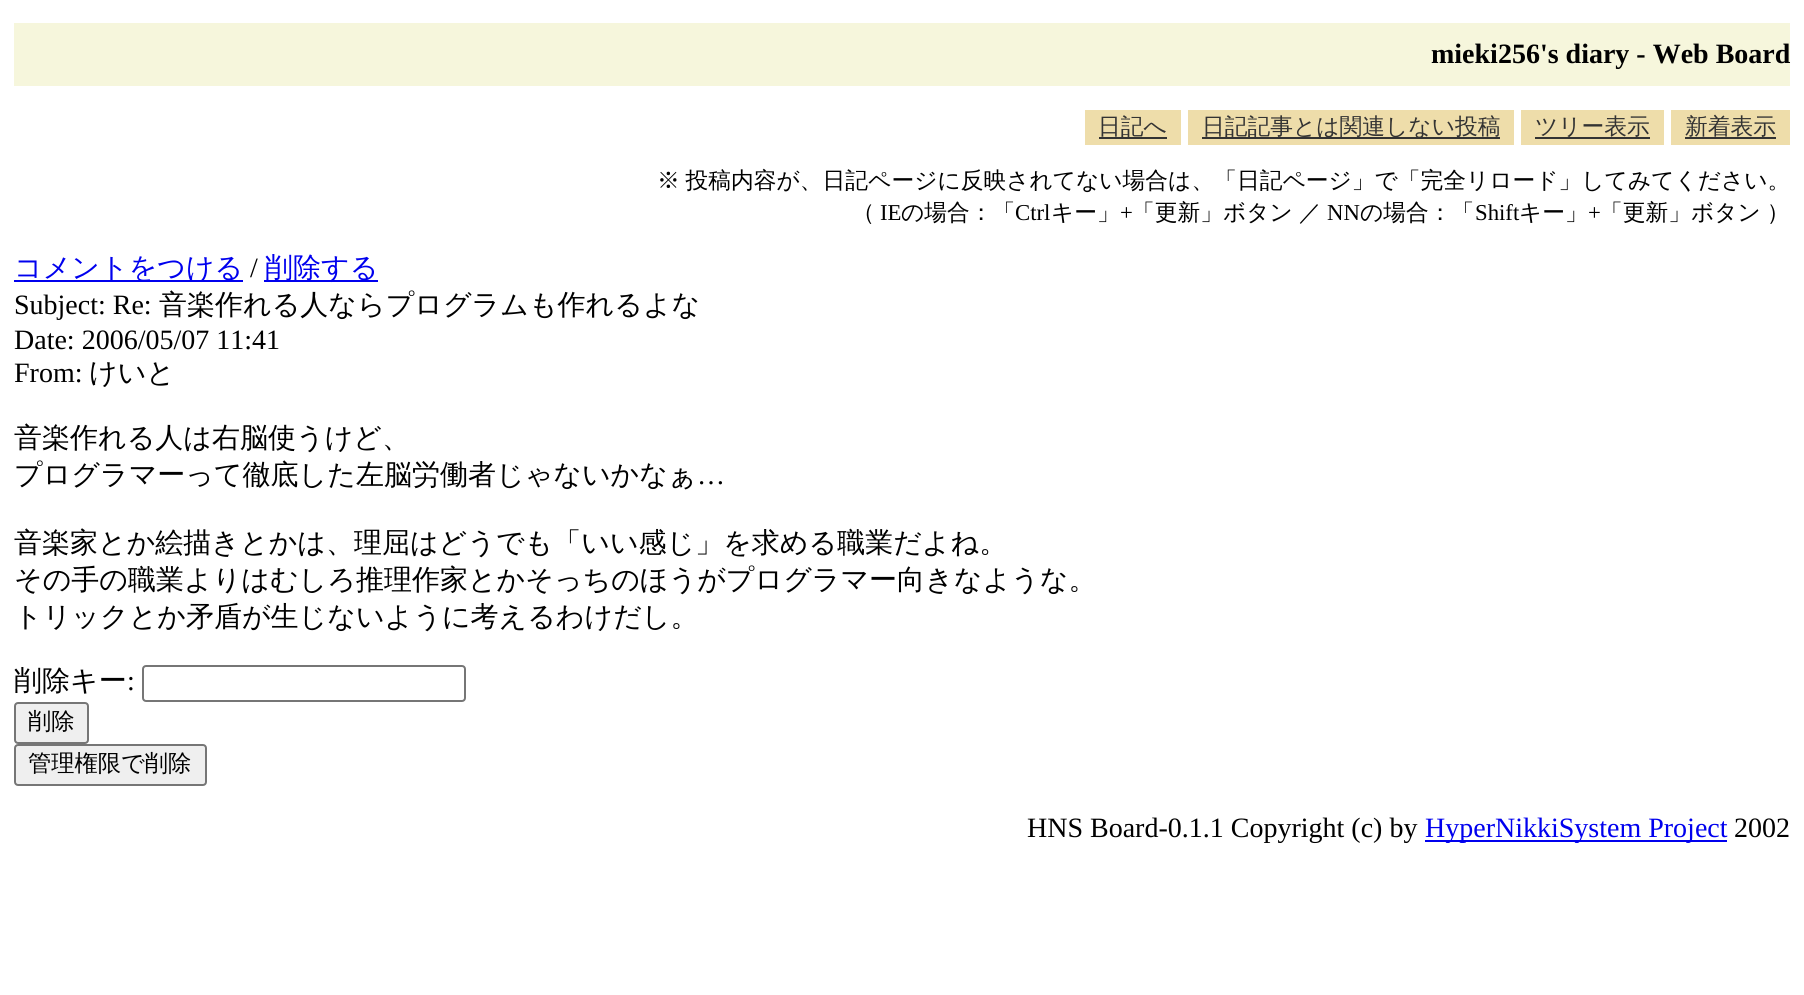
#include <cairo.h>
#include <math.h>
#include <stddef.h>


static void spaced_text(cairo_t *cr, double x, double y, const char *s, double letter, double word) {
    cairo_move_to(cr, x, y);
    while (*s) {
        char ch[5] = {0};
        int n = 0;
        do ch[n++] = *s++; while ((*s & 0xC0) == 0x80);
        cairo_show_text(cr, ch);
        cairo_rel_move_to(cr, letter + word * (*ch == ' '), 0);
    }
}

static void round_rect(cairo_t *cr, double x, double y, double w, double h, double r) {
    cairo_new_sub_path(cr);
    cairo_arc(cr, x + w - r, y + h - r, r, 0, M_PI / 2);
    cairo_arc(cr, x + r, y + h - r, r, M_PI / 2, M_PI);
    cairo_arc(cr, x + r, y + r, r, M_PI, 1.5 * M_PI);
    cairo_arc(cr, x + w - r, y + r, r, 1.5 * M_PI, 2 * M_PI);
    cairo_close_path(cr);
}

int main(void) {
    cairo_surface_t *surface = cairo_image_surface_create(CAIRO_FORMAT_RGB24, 1804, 995);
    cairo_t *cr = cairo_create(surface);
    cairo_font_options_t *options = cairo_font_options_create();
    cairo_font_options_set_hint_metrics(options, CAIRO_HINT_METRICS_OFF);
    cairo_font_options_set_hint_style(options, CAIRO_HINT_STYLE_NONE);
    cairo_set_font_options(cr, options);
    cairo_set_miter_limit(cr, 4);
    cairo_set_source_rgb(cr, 1, 1, 1);
    cairo_paint(cr);
    cairo_set_source_rgb(cr, 0.961, 0.961, 0.863);
    cairo_rectangle(cr, 14, 23, 1776, 63);
    cairo_fill(cr);
    cairo_select_font_face(cr, "Liberation Serif", CAIRO_FONT_SLANT_NORMAL, CAIRO_FONT_WEIGHT_BOLD);
    cairo_set_font_size(cr, 28);
    cairo_set_source_rgb(cr, 0, 0, 0);
    cairo_move_to(cr, 1431, 63);
    cairo_show_text(cr, "mieki256's diary - Web Board");
    cairo_set_source_rgb(cr, 0.933, 0.867, 0.667);
    cairo_rectangle(cr, 1085, 110, 96, 35);
    cairo_fill(cr);
    cairo_select_font_face(cr, "WenQuanYi Zen Hei Medium", CAIRO_FONT_SLANT_NORMAL, CAIRO_FONT_WEIGHT_NORMAL);
    cairo_set_font_size(cr, 22.75);
    cairo_set_source_rgb(cr, 0.2, 0.2, 0.2);
    cairo_move_to(cr, 1098, 134);
    cairo_show_text(cr, "日記へ");
    cairo_rectangle(cr, 1099, 137, 68, 2);
    cairo_fill(cr);
    cairo_set_source_rgb(cr, 0.933, 0.867, 0.667);
    cairo_rectangle(cr, 1188, 110, 326, 35);
    cairo_fill(cr);
    cairo_set_source_rgb(cr, 0.2, 0.2, 0.2);
    cairo_rectangle(cr, 1202, 137, 298, 2);
    cairo_fill(cr);
    cairo_move_to(cr, 1202, 134);
    cairo_show_text(cr, "日記記事とは関連しない投稿");
    cairo_set_source_rgb(cr, 0.933, 0.867, 0.667);
    cairo_rectangle(cr, 1521, 110, 143, 35);
    cairo_fill(cr);
    cairo_set_source_rgb(cr, 0.2, 0.2, 0.2);
    cairo_rectangle(cr, 1535, 137, 115, 2);
    cairo_fill(cr);
    cairo_move_to(cr, 1535, 134);
    cairo_show_text(cr, "ツリー表示");
    cairo_set_source_rgb(cr, 0.933, 0.867, 0.667);
    cairo_rectangle(cr, 1671, 110, 119, 35);
    cairo_fill(cr);
    cairo_set_source_rgb(cr, 0.2, 0.2, 0.2);
    cairo_move_to(cr, 1685, 134);
    cairo_show_text(cr, "新着表示");
    cairo_rectangle(cr, 1685, 137, 91, 2);
    cairo_fill(cr);
    cairo_set_source_rgb(cr, 0, 0, 0);
    spaced_text(cr, 657, 188, "※ 投稿内容が、日記ページに反映されてない場合は、「日記ページ」で「完全リロード」してみてください。", 0, -1);
    cairo_move_to(cr, 852, 220);
    cairo_show_text(cr, "（");
    cairo_select_font_face(cr, "Liberation Serif", CAIRO_FONT_SLANT_NORMAL, CAIRO_FONT_WEIGHT_NORMAL);
    cairo_move_to(cr, 880, 220);
    cairo_show_text(cr, "IE");
    cairo_select_font_face(cr, "WenQuanYi Zen Hei Medium", CAIRO_FONT_SLANT_NORMAL, CAIRO_FONT_WEIGHT_NORMAL);
    cairo_move_to(cr, 901, 220);
    cairo_show_text(cr, "の場合：「");
    cairo_select_font_face(cr, "Liberation Serif", CAIRO_FONT_SLANT_NORMAL, CAIRO_FONT_WEIGHT_NORMAL);
    cairo_move_to(cr, 1015, 220);
    cairo_show_text(cr, "Ctrl");
    cairo_select_font_face(cr, "WenQuanYi Zen Hei Medium", CAIRO_FONT_SLANT_NORMAL, CAIRO_FONT_WEIGHT_NORMAL);
    cairo_move_to(cr, 1051, 220);
    cairo_show_text(cr, "キー」");
    cairo_select_font_face(cr, "Liberation Serif", CAIRO_FONT_SLANT_NORMAL, CAIRO_FONT_WEIGHT_NORMAL);
    cairo_move_to(cr, 1120, 220);
    cairo_show_text(cr, "+");
    cairo_select_font_face(cr, "WenQuanYi Zen Hei Medium", CAIRO_FONT_SLANT_NORMAL, CAIRO_FONT_WEIGHT_NORMAL);
    spaced_text(cr, 1132, 220, "「更新」ボタン ／", 0, -1);
    cairo_select_font_face(cr, "Liberation Serif", CAIRO_FONT_SLANT_NORMAL, CAIRO_FONT_WEIGHT_NORMAL);
    cairo_move_to(cr, 1327, 220);
    cairo_show_text(cr, "NN");
    cairo_select_font_face(cr, "WenQuanYi Zen Hei Medium", CAIRO_FONT_SLANT_NORMAL, CAIRO_FONT_WEIGHT_NORMAL);
    cairo_move_to(cr, 1360, 220);
    cairo_show_text(cr, "の場合：「");
    cairo_select_font_face(cr, "Liberation Serif", CAIRO_FONT_SLANT_NORMAL, CAIRO_FONT_WEIGHT_NORMAL);
    cairo_move_to(cr, 1475, 220);
    cairo_show_text(cr, "Shift");
    cairo_select_font_face(cr, "WenQuanYi Zen Hei Medium", CAIRO_FONT_SLANT_NORMAL, CAIRO_FONT_WEIGHT_NORMAL);
    cairo_move_to(cr, 1519, 220);
    cairo_show_text(cr, "キー」");
    cairo_select_font_face(cr, "Liberation Serif", CAIRO_FONT_SLANT_NORMAL, CAIRO_FONT_WEIGHT_NORMAL);
    cairo_move_to(cr, 1588, 220);
    cairo_show_text(cr, "+");
    cairo_select_font_face(cr, "WenQuanYi Zen Hei Medium", CAIRO_FONT_SLANT_NORMAL, CAIRO_FONT_WEIGHT_NORMAL);
    spaced_text(cr, 1600, 220, "「更新」ボタン ）", 0, -1);
    cairo_set_source_rgb(cr, 0, 0, 0.933);
    cairo_rectangle(cr, 14, 280, 229, 2);
    cairo_fill(cr);
    cairo_set_font_size(cr, 28);
    cairo_move_to(cr, 14, 277);
    cairo_show_text(cr, "コメントをつける");
    cairo_select_font_face(cr, "Liberation Serif", CAIRO_FONT_SLANT_NORMAL, CAIRO_FONT_WEIGHT_NORMAL);
    cairo_set_source_rgb(cr, 0, 0, 0);
    cairo_move_to(cr, 250, 277);
    cairo_show_text(cr, "/");
    cairo_set_source_rgb(cr, 0, 0, 0.933);
    cairo_rectangle(cr, 264, 280, 114, 2);
    cairo_fill(cr);
    cairo_select_font_face(cr, "WenQuanYi Zen Hei Medium", CAIRO_FONT_SLANT_NORMAL, CAIRO_FONT_WEIGHT_NORMAL);
    cairo_move_to(cr, 265, 277);
    cairo_show_text(cr, "削除する");
    cairo_select_font_face(cr, "Liberation Serif", CAIRO_FONT_SLANT_NORMAL, CAIRO_FONT_WEIGHT_NORMAL);
    cairo_set_source_rgb(cr, 0, 0, 0);
    cairo_move_to(cr, 14, 314);
    cairo_show_text(cr, "Subject: Re:");
    cairo_select_font_face(cr, "WenQuanYi Zen Hei Medium", CAIRO_FONT_SLANT_NORMAL, CAIRO_FONT_WEIGHT_NORMAL);
    cairo_move_to(cr, 159, 314);
    cairo_show_text(cr, "音楽作れる人ならプログラムも作れるよな");
    cairo_select_font_face(cr, "Liberation Serif", CAIRO_FONT_SLANT_NORMAL, CAIRO_FONT_WEIGHT_NORMAL);
    cairo_move_to(cr, 14, 349);
    cairo_show_text(cr, "Date: 2006/05/07 11:41");
    cairo_move_to(cr, 14, 382);
    cairo_show_text(cr, "From:");
    cairo_select_font_face(cr, "WenQuanYi Zen Hei Medium", CAIRO_FONT_SLANT_NORMAL, CAIRO_FONT_WEIGHT_NORMAL);
    cairo_move_to(cr, 89, 382);
    cairo_show_text(cr, "けいと");
    cairo_move_to(cr, 14, 447);
    cairo_show_text(cr, "音楽作れる人は右脳使うけど、");
    cairo_move_to(cr, 14, 484);
    cairo_show_text(cr, "プログラマーって徹底した左脳労働者じゃないかなぁ");
    cairo_select_font_face(cr, "Liberation Serif", CAIRO_FONT_SLANT_NORMAL, CAIRO_FONT_WEIGHT_NORMAL);
    cairo_move_to(cr, 697, 484);
    cairo_show_text(cr, "…");
    cairo_select_font_face(cr, "WenQuanYi Zen Hei Medium", CAIRO_FONT_SLANT_NORMAL, CAIRO_FONT_WEIGHT_NORMAL);
    cairo_move_to(cr, 14, 552);
    cairo_show_text(cr, "音楽家とか絵描きとかは、理屈はどうでも「いい感じ」を求める職業だよね。");
    cairo_move_to(cr, 14, 589);
    cairo_show_text(cr, "その手の職業よりはむしろ推理作家とかそっちのほうがプログラマー向きなような。");
    cairo_move_to(cr, 14, 626);
    cairo_show_text(cr, "トリックとか矛盾が生じないように考えるわけだし。");
    cairo_move_to(cr, 14, 690);
    cairo_show_text(cr, "削除キー");
    cairo_select_font_face(cr, "Liberation Serif", CAIRO_FONT_SLANT_NORMAL, CAIRO_FONT_WEIGHT_NORMAL);
    cairo_move_to(cr, 127, 690);
    cairo_show_text(cr, ":");
    round_rect(cr, 143, 666, 322, 35, 3);
    cairo_set_source_rgb(cr, 0.463, 0.463, 0.463);
    cairo_stroke(cr);
    cairo_set_source_rgb(cr, 0.937, 0.937, 0.937);
    round_rect(cr, 15, 703, 73, 40, 3);
    cairo_fill_preserve(cr);
    cairo_set_source_rgb(cr, 0.463, 0.463, 0.463);
    cairo_stroke(cr);
    cairo_select_font_face(cr, "WenQuanYi Zen Hei Medium", CAIRO_FONT_SLANT_NORMAL, CAIRO_FONT_WEIGHT_NORMAL);
    cairo_set_font_size(cr, 23.25);
    cairo_set_source_rgb(cr, 0, 0, 0);
    cairo_move_to(cr, 28, 729);
    cairo_show_text(cr, "削除");
    cairo_set_source_rgb(cr, 0.937, 0.937, 0.937);
    round_rect(cr, 15, 745, 191, 40, 3);
    cairo_fill_preserve(cr);
    cairo_set_source_rgb(cr, 0.463, 0.463, 0.463);
    cairo_stroke(cr);
    cairo_set_source_rgb(cr, 0, 0, 0);
    cairo_move_to(cr, 28, 771);
    cairo_show_text(cr, "管理権限で削除");
    cairo_select_font_face(cr, "Liberation Serif", CAIRO_FONT_SLANT_NORMAL, CAIRO_FONT_WEIGHT_NORMAL);
    cairo_set_font_size(cr, 28);
    cairo_move_to(cr, 1027, 837);
    cairo_show_text(cr, "HNS Board-0.1.1 Copyright (c) by");
    cairo_set_source_rgb(cr, 0, 0, 0.933);
    cairo_rectangle(cr, 1425, 840, 302, 2);
    cairo_fill(cr);
    cairo_move_to(cr, 1425, 837);
    cairo_show_text(cr, "HyperNikkiSystem Project");
    cairo_set_source_rgb(cr, 0, 0, 0);
    cairo_move_to(cr, 1734, 837);
    cairo_show_text(cr, "2002");
    cairo_surface_write_to_png(surface, "page.png");
    cairo_font_options_destroy(options);
    cairo_destroy(cr);
    cairo_surface_destroy(surface);
    return 0;
}
